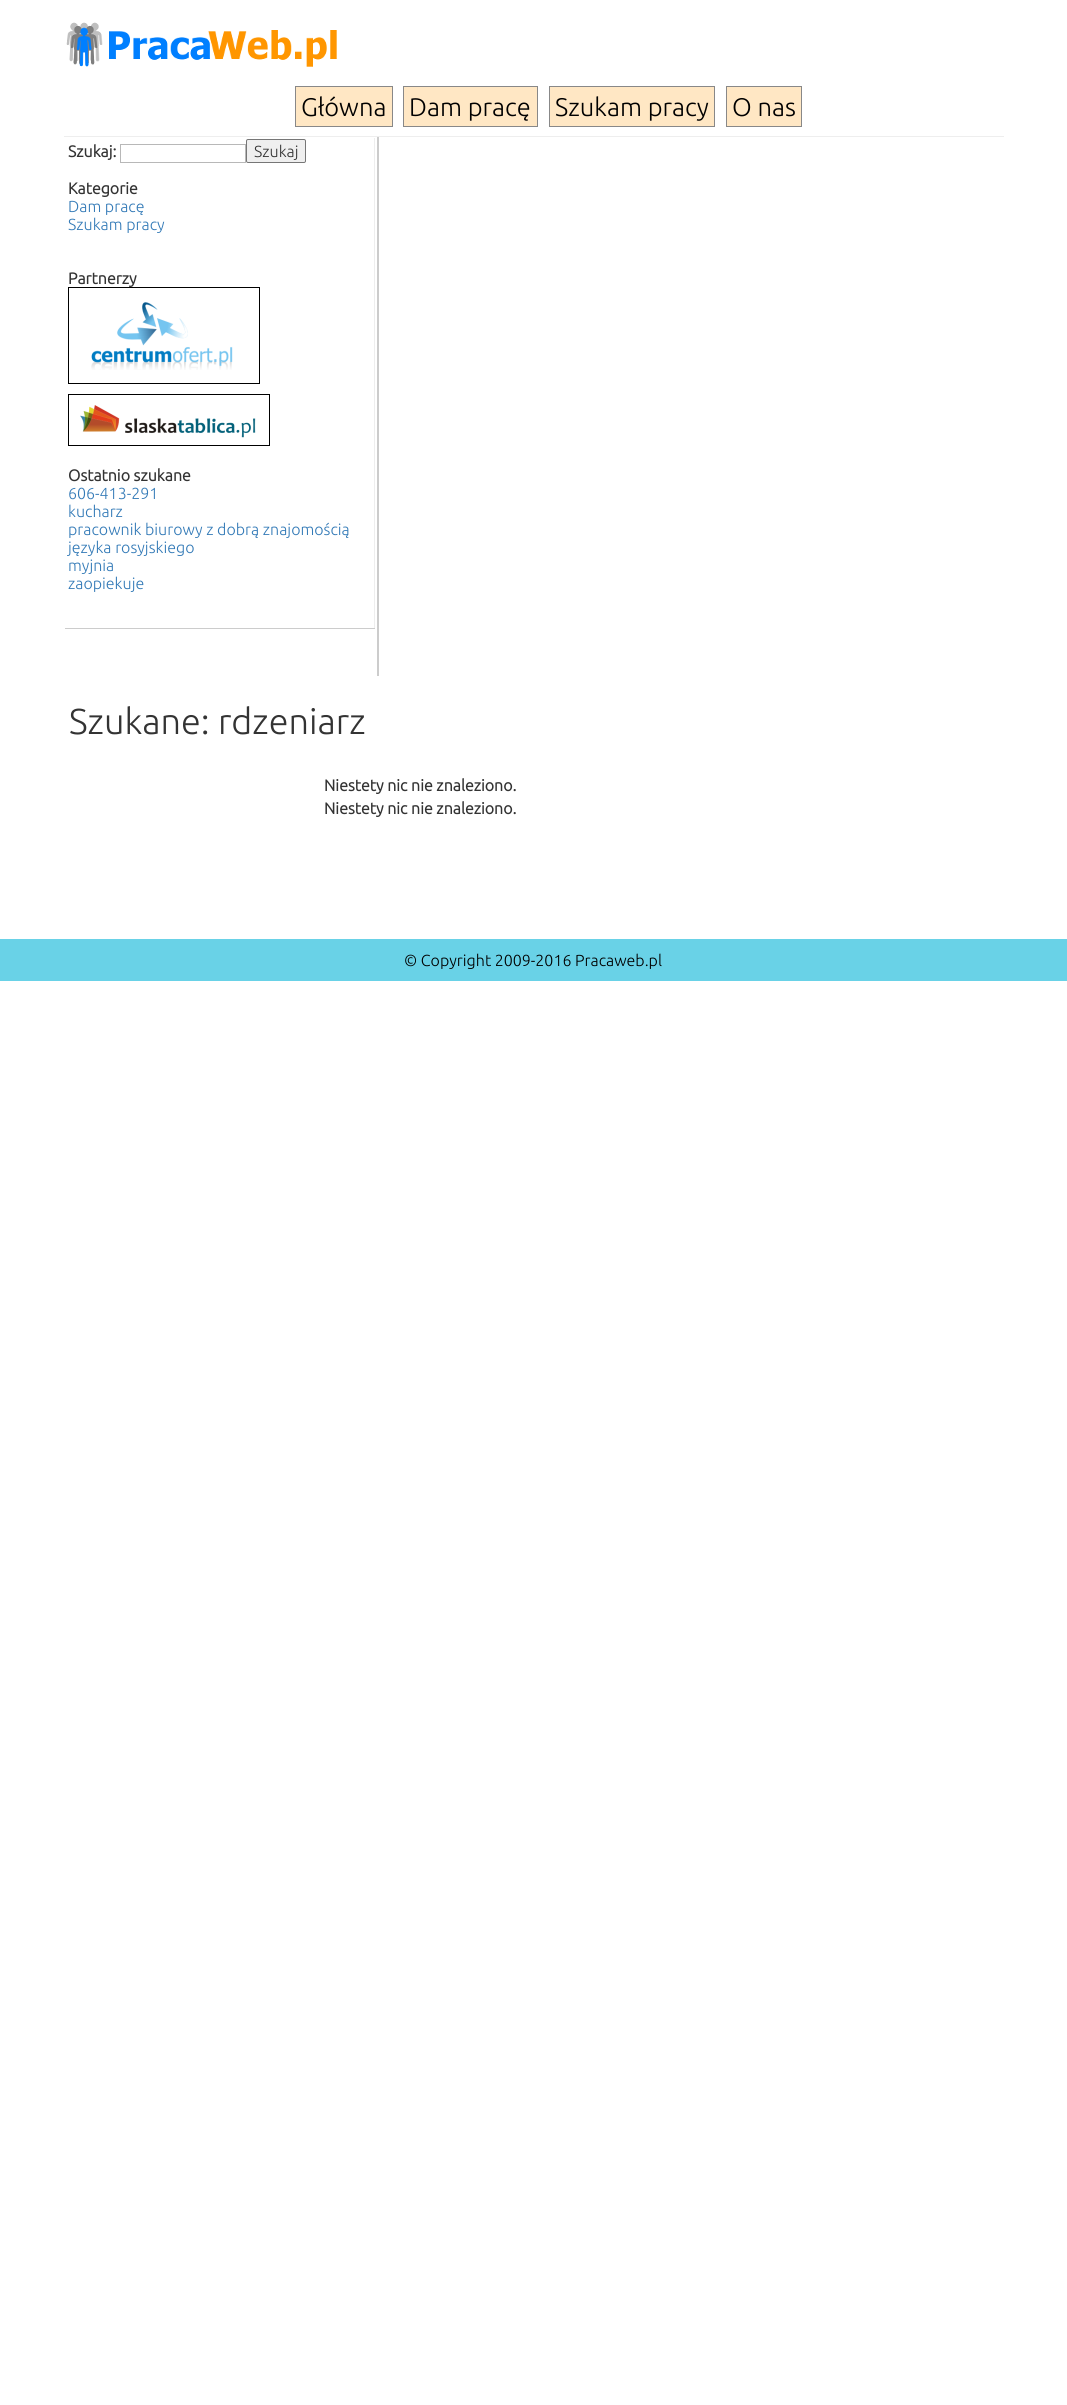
#include <cairo.h>
#include <math.h>
#include <stddef.h>


static void round_rect(cairo_t *cr, double x, double y, double w, double h, double r) {
    cairo_new_sub_path(cr);
    cairo_arc(cr, x + w - r, y + h - r, r, 0, M_PI / 2);
    cairo_arc(cr, x + r, y + h - r, r, M_PI / 2, M_PI);
    cairo_arc(cr, x + r, y + r, r, M_PI, 1.5 * M_PI);
    cairo_arc(cr, x + w - r, y + r, r, 1.5 * M_PI, 2 * M_PI);
    cairo_close_path(cr);
}

static void picture(cairo_t *cr, const char *path, double x, double y, double w, double h) {
    cairo_surface_t *image = cairo_image_surface_create_from_png(path);
    cairo_save(cr);
    cairo_set_source_surface(cr, image, x, y);
    cairo_rectangle(cr, x, y, w, h);
    cairo_fill(cr);
    cairo_restore(cr);
    cairo_surface_destroy(image);
}

int main(void) {
    cairo_surface_t *surface = cairo_image_surface_create(CAIRO_FORMAT_RGB24, 1067, 2405);
    cairo_t *cr = cairo_create(surface);
    cairo_font_options_t *options = cairo_font_options_create();
    cairo_font_options_set_hint_metrics(options, CAIRO_HINT_METRICS_OFF);
    cairo_font_options_set_hint_style(options, CAIRO_HINT_STYLE_NONE);
    cairo_set_font_options(cr, options);
    cairo_set_miter_limit(cr, 4);
    cairo_set_source_rgb(cr, 1, 1, 1);
    cairo_paint(cr);
    picture(cr, "img1.png", 66, 22, 271, 45);
    cairo_set_source_rgb(cr, 0.933, 0.933, 0.933);
    cairo_rectangle(cr, 64, 136, 940, 1);
    cairo_fill(cr);
    cairo_set_source_rgb(cr, 1, 0.906, 0.769);
    cairo_rectangle(cr, 295.5, 86.5, 97, 40);
    cairo_fill_preserve(cr);
    cairo_set_source_rgb(cr, 0.533, 0.533, 0.533);
    cairo_set_line_width(cr, 1);
    cairo_stroke(cr);
    cairo_select_font_face(cr, "Ubuntu Light", CAIRO_FONT_SLANT_NORMAL, CAIRO_FONT_WEIGHT_NORMAL);
    cairo_set_font_size(cr, 25.5);
    cairo_set_source_rgb(cr, 0, 0, 0);
    cairo_move_to(cr, 301, 116);
    cairo_show_text(cr, "Główna");
    cairo_set_source_rgb(cr, 1, 0.906, 0.769);
    cairo_rectangle(cr, 403.5, 86.5, 134, 40);
    cairo_fill_preserve(cr);
    cairo_set_source_rgb(cr, 0.533, 0.533, 0.533);
    cairo_stroke(cr);
    cairo_set_source_rgb(cr, 0, 0, 0);
    cairo_move_to(cr, 409, 116);
    cairo_show_text(cr, "Dam pracę");
    cairo_set_source_rgb(cr, 1, 0.906, 0.769);
    cairo_rectangle(cr, 549.5, 86.5, 165, 40);
    cairo_fill_preserve(cr);
    cairo_set_source_rgb(cr, 0.533, 0.533, 0.533);
    cairo_stroke(cr);
    cairo_set_source_rgb(cr, 0, 0, 0);
    cairo_move_to(cr, 555, 116);
    cairo_show_text(cr, "Szukam pracy");
    cairo_set_source_rgb(cr, 1, 0.906, 0.769);
    cairo_rectangle(cr, 726.5, 86.5, 75, 40);
    cairo_fill_preserve(cr);
    cairo_set_source_rgb(cr, 0.533, 0.533, 0.533);
    cairo_stroke(cr);
    cairo_set_source_rgb(cr, 0, 0, 0);
    cairo_move_to(cr, 732, 116);
    cairo_show_text(cr, "O nas");
    cairo_set_source_rgb(cr, 0.8, 0.8, 0.8);
    cairo_rectangle(cr, 377, 137, 2, 539);
    cairo_fill(cr);
    cairo_set_source_rgb(cr, 0.933, 0.933, 0.933);
    cairo_rectangle(cr, 374, 138, 1, 491);
    cairo_fill(cr);
    cairo_set_source_rgb(cr, 0.8, 0.8, 0.8);
    cairo_rectangle(cr, 65, 628, 310, 1);
    cairo_fill(cr);
    cairo_select_font_face(cr, "Ubuntu", CAIRO_FONT_SLANT_NORMAL, CAIRO_FONT_WEIGHT_BOLD);
    cairo_set_font_size(cr, 16);
    cairo_set_source_rgb(cr, 0.2, 0.2, 0.2);
    cairo_move_to(cr, 68, 157);
    cairo_show_text(cr, "Szukaj:");
    cairo_rectangle(cr, 120.5, 144.5, 125, 18);
    cairo_set_source_rgb(cr, 0.722, 0.722, 0.722);
    cairo_stroke(cr);
    cairo_set_source_rgb(cr, 0.937, 0.937, 0.937);
    round_rect(cr, 246.5, 139.5, 59, 23, 1.5);
    cairo_fill_preserve(cr);
    cairo_set_source_rgb(cr, 0.463, 0.463, 0.463);
    cairo_stroke(cr);
    cairo_select_font_face(cr, "Ubuntu Light", CAIRO_FONT_SLANT_NORMAL, CAIRO_FONT_WEIGHT_NORMAL);
    cairo_set_source_rgb(cr, 0.2, 0.2, 0.2);
    cairo_move_to(cr, 254, 157);
    cairo_show_text(cr, "Szukaj");
    cairo_select_font_face(cr, "Ubuntu", CAIRO_FONT_SLANT_NORMAL, CAIRO_FONT_WEIGHT_BOLD);
    cairo_move_to(cr, 68, 194);
    cairo_show_text(cr, "Kategorie");
    cairo_select_font_face(cr, "Ubuntu Light", CAIRO_FONT_SLANT_NORMAL, CAIRO_FONT_WEIGHT_NORMAL);
    cairo_set_source_rgb(cr, 0.2, 0.478, 0.718);
    cairo_move_to(cr, 68, 212);
    cairo_show_text(cr, "Dam pracę");
    cairo_move_to(cr, 68, 230);
    cairo_show_text(cr, "Szukam pracy");
    cairo_select_font_face(cr, "Ubuntu", CAIRO_FONT_SLANT_NORMAL, CAIRO_FONT_WEIGHT_BOLD);
    cairo_set_source_rgb(cr, 0.2, 0.2, 0.2);
    cairo_move_to(cr, 68, 284);
    cairo_show_text(cr, "Partnerzy");
    cairo_rectangle(cr, 68.5, 287.5, 191, 96);
    cairo_set_source_rgb(cr, 0, 0, 0);
    cairo_stroke(cr);
    picture(cr, "img2.png", 91, 302, 142, 68);
    cairo_rectangle(cr, 68.5, 394.5, 201, 51);
    cairo_stroke(cr);
    picture(cr, "img3.png", 80, 405, 176, 33);
    cairo_set_source_rgb(cr, 0.2, 0.2, 0.2);
    cairo_move_to(cr, 68, 481);
    cairo_show_text(cr, "Ostatnio szukane");
    cairo_select_font_face(cr, "Ubuntu Light", CAIRO_FONT_SLANT_NORMAL, CAIRO_FONT_WEIGHT_NORMAL);
    cairo_set_source_rgb(cr, 0.2, 0.478, 0.718);
    cairo_move_to(cr, 68, 499);
    cairo_show_text(cr, "606-413-291");
    cairo_move_to(cr, 68, 517);
    cairo_show_text(cr, "kucharz");
    cairo_move_to(cr, 68, 535);
    cairo_show_text(cr, "pracownik biurowy z dobrą znajomością");
    cairo_move_to(cr, 68, 553);
    cairo_show_text(cr, "języka rosyjskiego");
    cairo_move_to(cr, 68, 571);
    cairo_show_text(cr, "myjnia");
    cairo_move_to(cr, 68, 589);
    cairo_show_text(cr, "zaopiekuje");
    cairo_set_font_size(cr, 36);
    cairo_set_source_rgb(cr, 0.2, 0.2, 0.2);
    cairo_move_to(cr, 69, 734);
    cairo_show_text(cr, "Szukane: rdzeniarz");
    cairo_select_font_face(cr, "Ubuntu", CAIRO_FONT_SLANT_NORMAL, CAIRO_FONT_WEIGHT_BOLD);
    cairo_set_font_size(cr, 16);
    cairo_move_to(cr, 324, 791);
    cairo_show_text(cr, "Niestety nic nie znaleziono.");
    cairo_move_to(cr, 324, 814);
    cairo_show_text(cr, "Niestety nic nie znaleziono.");
    cairo_set_source_rgb(cr, 0.412, 0.824, 0.906);
    cairo_rectangle(cr, 0, 939, 1067, 42);
    cairo_fill(cr);
    cairo_select_font_face(cr, "Ubuntu Light", CAIRO_FONT_SLANT_NORMAL, CAIRO_FONT_WEIGHT_NORMAL);
    cairo_set_source_rgb(cr, 0, 0, 0);
    cairo_move_to(cr, 404, 966);
    cairo_show_text(cr, "© Copyright 2009-2016 Pracaweb.pl");
    cairo_surface_write_to_png(surface, "page.png");
    cairo_font_options_destroy(options);
    cairo_destroy(cr);
    cairo_surface_destroy(surface);
    return 0;
}
